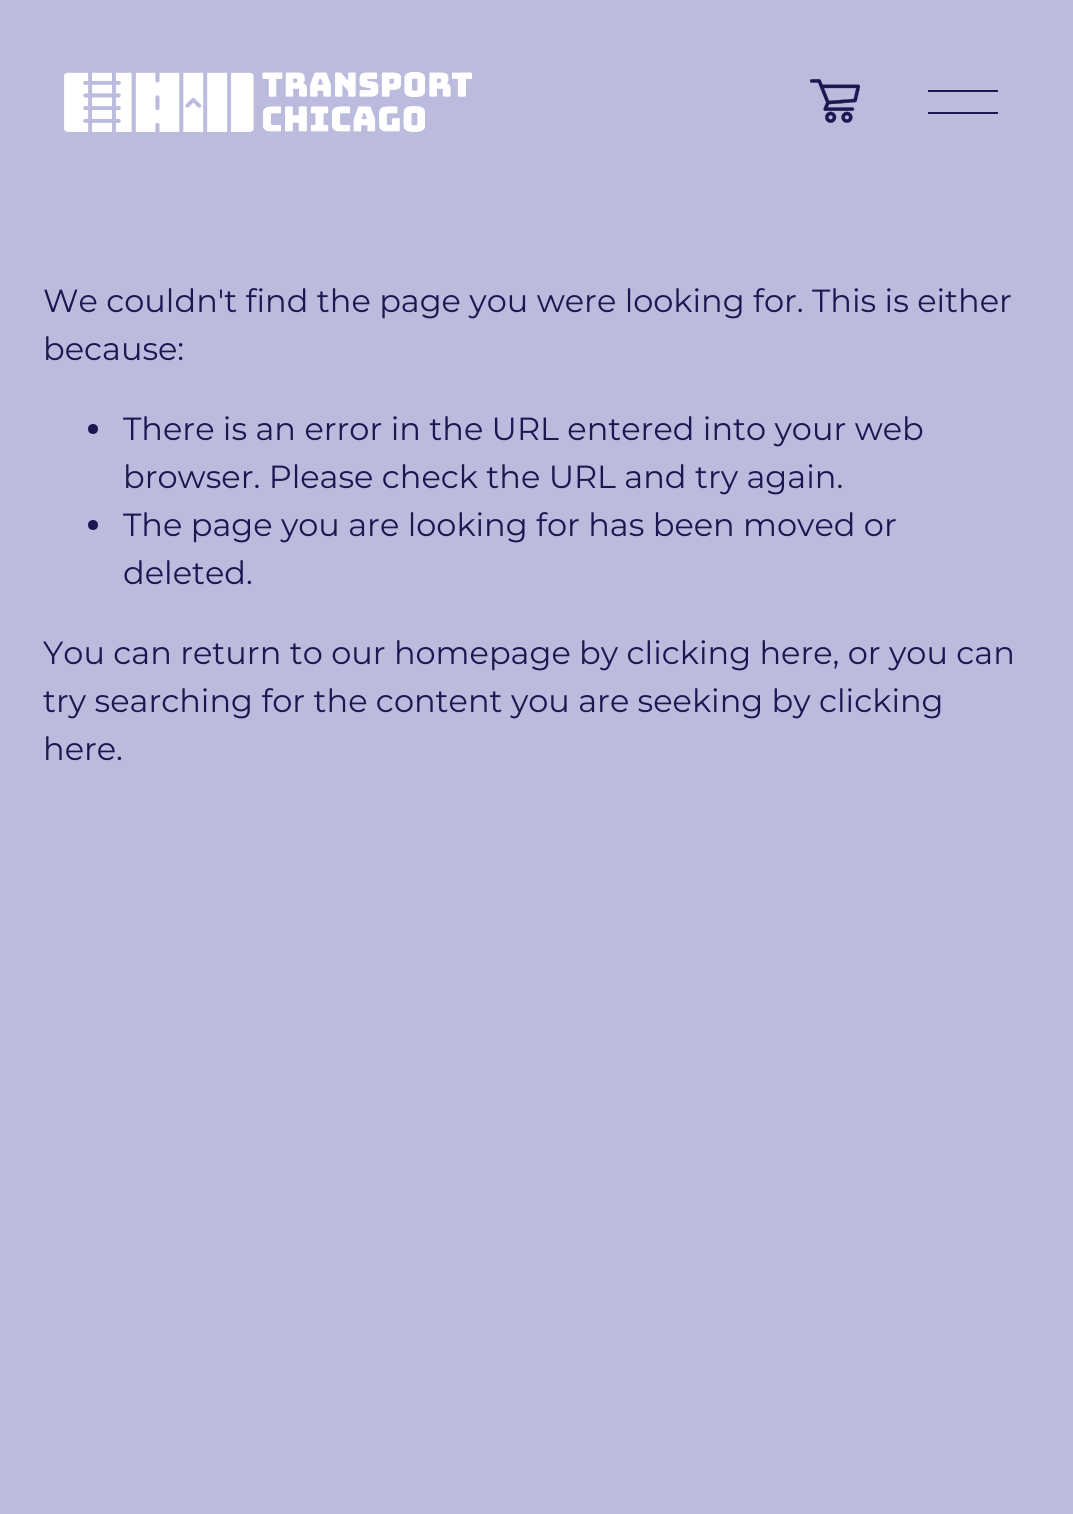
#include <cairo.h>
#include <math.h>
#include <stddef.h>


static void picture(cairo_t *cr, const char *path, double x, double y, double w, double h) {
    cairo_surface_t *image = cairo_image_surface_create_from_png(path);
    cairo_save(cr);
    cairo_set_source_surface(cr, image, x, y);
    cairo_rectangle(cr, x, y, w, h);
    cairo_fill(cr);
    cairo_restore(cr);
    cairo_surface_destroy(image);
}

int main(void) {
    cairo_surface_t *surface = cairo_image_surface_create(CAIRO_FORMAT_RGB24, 1073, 1514);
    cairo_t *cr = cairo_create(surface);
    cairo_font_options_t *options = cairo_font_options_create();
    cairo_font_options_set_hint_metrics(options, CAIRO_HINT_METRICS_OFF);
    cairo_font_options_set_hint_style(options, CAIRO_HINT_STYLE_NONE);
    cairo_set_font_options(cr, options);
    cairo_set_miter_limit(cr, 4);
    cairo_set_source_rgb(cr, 0.733, 0.733, 0.871);
    cairo_paint(cr);
    picture(cr, "img1.png", 64, 71, 408, 61);
    picture(cr, "img2.png", 810, 79, 50, 44);
    cairo_set_source_rgb(cr, 0.11, 0.09, 0.318);
    cairo_rectangle(cr, 928, 90, 70, 2);
    cairo_fill(cr);
    cairo_rectangle(cr, 928, 112, 70, 2);
    cairo_fill(cr);
    cairo_select_font_face(cr, "Montserrat", CAIRO_FONT_SLANT_NORMAL, CAIRO_FONT_WEIGHT_NORMAL);
    cairo_set_font_size(cr, 32);
    cairo_move_to(cr, 43, 312);
    cairo_show_text(cr, "We couldn't find the page you were looking for. This is either");
    cairo_move_to(cr, 43, 360);
    cairo_show_text(cr, "because:");
    cairo_new_path(cr);
    cairo_arc(cr, 93, 429, 5, 0, 2 * M_PI);
    cairo_fill(cr);
    cairo_move_to(cr, 123, 440);
    cairo_show_text(cr, "There is an error in the URL entered into your web");
    cairo_move_to(cr, 123, 488);
    cairo_show_text(cr, "browser. Please check the URL and try again.");
    cairo_new_path(cr);
    cairo_arc(cr, 93, 525, 5, 0, 2 * M_PI);
    cairo_fill(cr);
    cairo_move_to(cr, 123, 536);
    cairo_show_text(cr, "The page you are looking for has been moved or");
    cairo_move_to(cr, 123, 584);
    cairo_show_text(cr, "deleted.");
    cairo_move_to(cr, 43, 664);
    cairo_show_text(cr, "You can return to our homepage by clicking here, or you can");
    cairo_move_to(cr, 43, 712);
    cairo_show_text(cr, "try searching for the content you are seeking by clicking");
    cairo_move_to(cr, 43, 760);
    cairo_show_text(cr, "here.");
    cairo_surface_write_to_png(surface, "page.png");
    cairo_font_options_destroy(options);
    cairo_destroy(cr);
    cairo_surface_destroy(surface);
    return 0;
}
